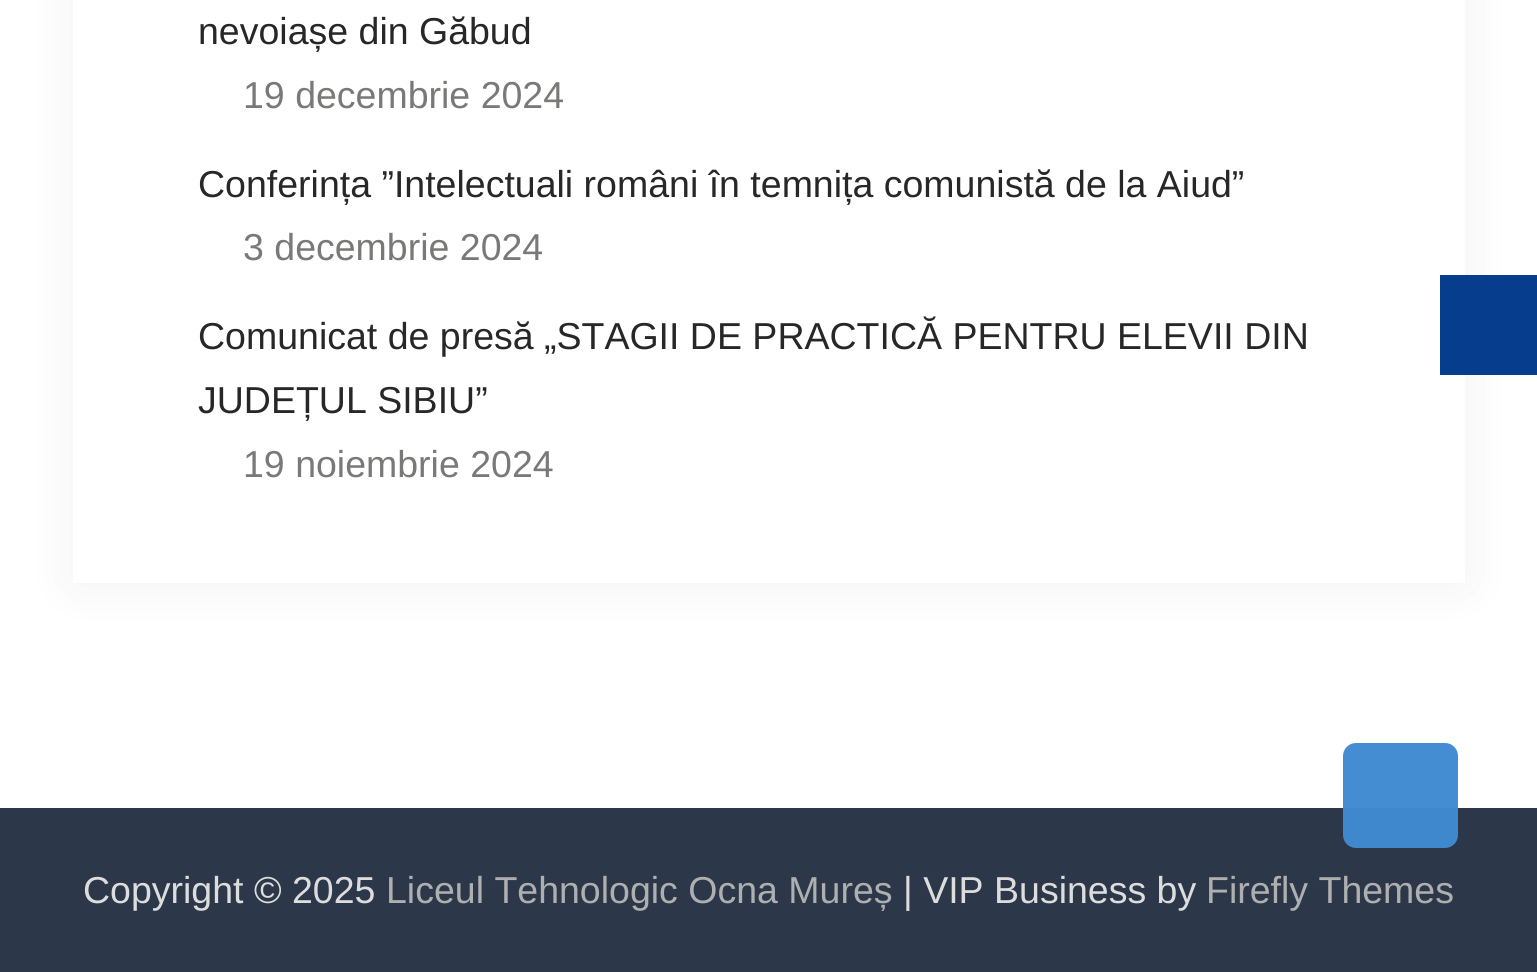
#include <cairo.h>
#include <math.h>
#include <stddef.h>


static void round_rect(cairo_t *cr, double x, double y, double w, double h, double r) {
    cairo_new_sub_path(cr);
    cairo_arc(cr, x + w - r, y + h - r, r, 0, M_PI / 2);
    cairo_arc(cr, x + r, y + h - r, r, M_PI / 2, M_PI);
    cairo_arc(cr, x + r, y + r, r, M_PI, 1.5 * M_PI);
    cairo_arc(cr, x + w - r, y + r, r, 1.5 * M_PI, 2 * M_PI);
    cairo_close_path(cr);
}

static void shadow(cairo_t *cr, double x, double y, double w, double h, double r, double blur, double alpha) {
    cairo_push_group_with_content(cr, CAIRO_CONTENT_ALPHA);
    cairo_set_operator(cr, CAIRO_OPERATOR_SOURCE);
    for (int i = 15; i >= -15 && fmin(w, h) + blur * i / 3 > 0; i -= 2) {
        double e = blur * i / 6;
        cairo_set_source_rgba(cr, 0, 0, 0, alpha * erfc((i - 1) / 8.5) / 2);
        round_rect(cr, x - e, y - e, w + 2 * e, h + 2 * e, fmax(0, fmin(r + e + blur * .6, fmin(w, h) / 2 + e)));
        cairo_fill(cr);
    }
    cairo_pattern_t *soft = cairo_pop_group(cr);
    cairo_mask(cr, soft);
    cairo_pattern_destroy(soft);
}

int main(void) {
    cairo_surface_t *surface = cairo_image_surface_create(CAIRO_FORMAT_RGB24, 1537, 972);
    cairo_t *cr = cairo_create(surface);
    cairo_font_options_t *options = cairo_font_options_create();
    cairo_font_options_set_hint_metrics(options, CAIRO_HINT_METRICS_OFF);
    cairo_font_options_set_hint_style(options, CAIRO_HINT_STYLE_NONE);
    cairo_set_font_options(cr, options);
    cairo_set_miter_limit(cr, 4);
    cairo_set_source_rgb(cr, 1, 1, 1);
    cairo_paint(cr);
    cairo_set_source_rgb(cr, 0.122, 0.114, 0.114);
    shadow(cr, 73, -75, 1392, 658, 0, 25, 0.07);
    cairo_set_source_rgb(cr, 1, 1, 1);
    cairo_rectangle(cr, 73, 0, 1392, 583);
    cairo_fill(cr);
    cairo_select_font_face(cr, "Liberation Sans", CAIRO_FONT_SLANT_NORMAL, CAIRO_FONT_WEIGHT_NORMAL);
    cairo_set_font_size(cr, 37.5);
    cairo_set_source_rgb(cr, 0.153, 0.153, 0.153);
    cairo_move_to(cr, 198, 44);
    cairo_show_text(cr, "nevoiașe din Găbud");
    cairo_set_source_rgb(cr, 0.475, 0.475, 0.471);
    cairo_move_to(cr, 243, 108);
    cairo_show_text(cr, "19 decembrie 2024");
    cairo_set_source_rgb(cr, 0.153, 0.153, 0.153);
    cairo_move_to(cr, 198, 197);
    cairo_show_text(cr, "Conferința ”Intelectuali români în temnița comunistă de la Aiud”");
    cairo_set_source_rgb(cr, 0.475, 0.475, 0.471);
    cairo_move_to(cr, 243, 260);
    cairo_show_text(cr, "3 decembrie 2024");
    cairo_set_source_rgb(cr, 0.153, 0.153, 0.153);
    cairo_move_to(cr, 198, 349);
    cairo_show_text(cr, "Comunicat de presă „STAGII DE PRACTICĂ PENTRU ELEVII DIN");
    cairo_move_to(cr, 198, 413);
    cairo_show_text(cr, "JUDEȚUL SIBIU”");
    cairo_set_source_rgb(cr, 0.475, 0.475, 0.471);
    cairo_move_to(cr, 243, 477);
    cairo_show_text(cr, "19 noiembrie 2024");
    cairo_set_source_rgb(cr, 0.173, 0.22, 0.29);
    cairo_rectangle(cr, 0, 808, 1537, 164);
    cairo_fill(cr);
    cairo_set_source_rgb(cr, 0.867, 0.867, 0.867);
    cairo_move_to(cr, 83, 903);
    cairo_show_text(cr, "Copyright © 2025");
    cairo_set_source_rgb(cr, 0.686, 0.686, 0.686);
    cairo_move_to(cr, 386, 903);
    cairo_show_text(cr, "Liceul Tehnologic Ocna Mureș");
    cairo_set_source_rgb(cr, 0.867, 0.867, 0.867);
    cairo_move_to(cr, 903, 903);
    cairo_show_text(cr, "| VIP Business by");
    cairo_set_source_rgb(cr, 0.686, 0.686, 0.686);
    cairo_move_to(cr, 1206, 903);
    cairo_show_text(cr, "Firefly Themes");
    cairo_set_source_rgb(cr, 0.024, 0.239, 0.553);
    cairo_rectangle(cr, 1440, 275, 97, 100);
    cairo_fill(cr);
    cairo_set_source_rgba(cr, 0.251, 0.541, 0.824, 0.97);
    round_rect(cr, 1343, 743, 115, 105, 13);
    cairo_fill(cr);
    cairo_surface_write_to_png(surface, "page.png");
    cairo_font_options_destroy(options);
    cairo_destroy(cr);
    cairo_surface_destroy(surface);
    return 0;
}
